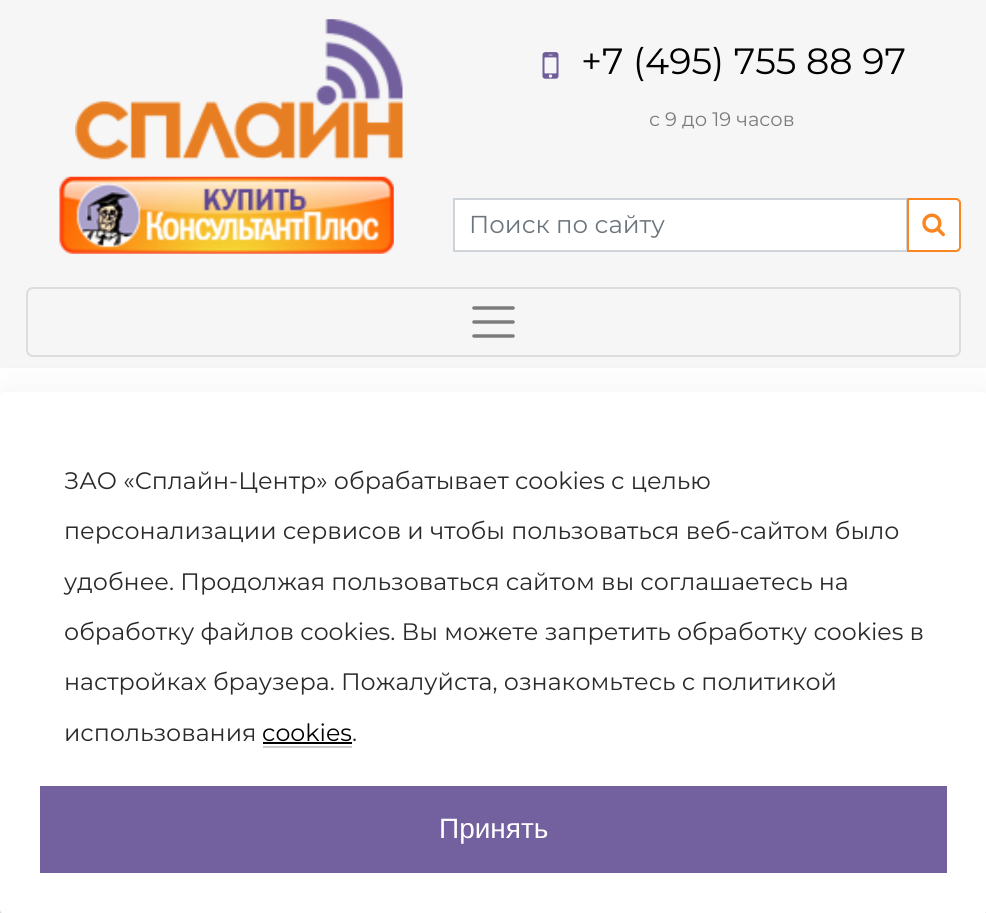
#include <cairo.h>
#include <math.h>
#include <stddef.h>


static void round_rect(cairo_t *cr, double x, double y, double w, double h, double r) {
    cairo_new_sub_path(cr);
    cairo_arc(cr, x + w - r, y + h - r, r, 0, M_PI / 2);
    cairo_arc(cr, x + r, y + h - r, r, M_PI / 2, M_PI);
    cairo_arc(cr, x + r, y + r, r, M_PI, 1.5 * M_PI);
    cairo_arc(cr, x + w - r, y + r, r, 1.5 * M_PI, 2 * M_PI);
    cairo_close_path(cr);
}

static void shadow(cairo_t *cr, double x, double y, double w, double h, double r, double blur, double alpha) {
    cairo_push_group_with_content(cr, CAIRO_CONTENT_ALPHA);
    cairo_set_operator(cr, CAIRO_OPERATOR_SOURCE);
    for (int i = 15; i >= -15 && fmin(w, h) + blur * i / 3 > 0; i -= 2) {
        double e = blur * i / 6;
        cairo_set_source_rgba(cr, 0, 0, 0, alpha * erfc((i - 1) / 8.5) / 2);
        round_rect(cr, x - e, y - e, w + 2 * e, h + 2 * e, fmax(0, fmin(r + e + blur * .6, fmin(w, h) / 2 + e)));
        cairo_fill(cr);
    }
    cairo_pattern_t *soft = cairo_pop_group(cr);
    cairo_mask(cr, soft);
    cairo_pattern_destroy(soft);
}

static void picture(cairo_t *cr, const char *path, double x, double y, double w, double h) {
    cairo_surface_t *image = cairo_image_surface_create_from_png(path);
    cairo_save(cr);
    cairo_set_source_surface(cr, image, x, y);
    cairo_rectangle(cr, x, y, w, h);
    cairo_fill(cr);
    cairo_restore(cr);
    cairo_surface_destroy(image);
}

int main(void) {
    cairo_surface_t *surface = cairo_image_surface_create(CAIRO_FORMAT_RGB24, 986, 913);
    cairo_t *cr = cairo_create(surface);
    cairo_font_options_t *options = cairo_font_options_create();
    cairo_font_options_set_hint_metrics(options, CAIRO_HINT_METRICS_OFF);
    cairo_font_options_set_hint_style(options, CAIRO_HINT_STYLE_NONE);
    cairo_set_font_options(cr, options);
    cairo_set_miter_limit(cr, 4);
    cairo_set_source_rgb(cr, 1, 1, 1);
    cairo_paint(cr);
    cairo_set_source_rgb(cr, 0.961, 0.961, 0.961);
    cairo_rectangle(cr, 0, 0, 986, 368);
    cairo_fill(cr);
    picture(cr, "img1.png", 75, 19, 328, 141);
    picture(cr, "img2.png", 542, 52, 17, 27);
    cairo_select_font_face(cr, "Montserrat", CAIRO_FONT_SLANT_NORMAL, CAIRO_FONT_WEIGHT_NORMAL);
    cairo_set_font_size(cr, 36.5);
    cairo_set_source_rgb(cr, 0, 0, 0);
    cairo_move_to(cr, 581, 74);
    cairo_show_text(cr, "+7 (495) 755 88 97");
    cairo_set_font_size(cr, 19.5);
    cairo_set_source_rgb(cr, 0.482, 0.482, 0.482);
    cairo_move_to(cr, 649, 126);
    cairo_show_text(cr, "с 9 до 19 часов");
    picture(cr, "img3.png", 59, 176, 335, 78);
    cairo_set_source_rgb(cr, 1, 1, 1);
    cairo_rectangle(cr, 454, 199, 453, 52);
    cairo_fill_preserve(cr);
    cairo_set_source_rgb(cr, 0.808, 0.831, 0.855);
    cairo_stroke(cr);
    cairo_set_font_size(cr, 24.5);
    cairo_set_source_rgb(cr, 0.424, 0.459, 0.49);
    cairo_move_to(cr, 469, 233);
    cairo_show_text(cr, "Поиск по сайту");
    cairo_set_source_rgb(cr, 1, 1, 1);
    cairo_new_path(cr);
    cairo_move_to(cr, 908, 199);
    cairo_line_to(cr, 956, 199);
    cairo_curve_to(cr, 958, 199, 960, 201, 960, 203);
    cairo_line_to(cr, 960, 247);
    cairo_curve_to(cr, 960, 249, 958, 251, 956, 251);
    cairo_line_to(cr, 908, 251);
    cairo_close_path(cr);
    cairo_fill_preserve(cr);
    cairo_set_source_rgb(cr, 0.98, 0.525, 0.137);
    cairo_stroke(cr);
    picture(cr, "img4.png", 922, 213, 23, 24);
    round_rect(cr, 27, 288, 933, 68, 6);
    cairo_set_source_rgb(cr, 0.867, 0.867, 0.867);
    cairo_stroke(cr);
    cairo_new_path(cr);
    cairo_move_to(cr, 474, 308);
    cairo_line_to(cr, 513, 308);
    cairo_move_to(cr, 474, 322);
    cairo_line_to(cr, 513, 322);
    cairo_move_to(cr, 474, 336);
    cairo_line_to(cr, 513, 336);
    cairo_set_source_rgb(cr, 0.482, 0.482, 0.482);
    cairo_set_line_width(cr, 3.5);
    cairo_set_line_cap(cr, CAIRO_LINE_CAP_ROUND);
    cairo_stroke(cr);
    cairo_rectangle(cr, 1, 608, 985, 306);
    cairo_set_source_rgb(cr, 0.875, 0.875, 0.875);
    cairo_set_line_width(cr, 2);
    cairo_set_line_cap(cr, CAIRO_LINE_CAP_BUTT);
    cairo_stroke(cr);
    cairo_set_source_rgb(cr, 0.627, 0.627, 0.627);
    shadow(cr, 0, 394, 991, 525, 7, 20, 0.14);
    cairo_set_source_rgb(cr, 1, 1, 1);
    round_rect(cr, 0, 392, 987, 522, 5);
    cairo_fill(cr);
    cairo_set_font_size(cr, 23.8);
    cairo_set_source_rgb(cr, 0.165, 0.165, 0.165);
    cairo_move_to(cr, 64, 489);
    cairo_show_text(cr, "ЗАО «Сплайн-Центр» обрабатывает cookies с целью");
    cairo_move_to(cr, 64, 539);
    cairo_show_text(cr, "персонализации сервисов и чтобы пользоваться веб-сайтом было");
    cairo_move_to(cr, 64, 590);
    cairo_show_text(cr, "удобнее. Продолжая пользоваться сайтом вы соглашаетесь на");
    cairo_move_to(cr, 64, 640);
    cairo_show_text(cr, "обработку файлов cookies. Вы можете запретить обработку сookies в");
    cairo_move_to(cr, 64, 690);
    cairo_show_text(cr, "настройках браузера. Пожалуйста, ознакомьтесь с политикой");
    cairo_move_to(cr, 64, 741);
    cairo_show_text(cr, "использования");
    cairo_set_source_rgb(cr, 0, 0, 0);
    cairo_move_to(cr, 262, 741);
    cairo_show_text(cr, "cookies");
    cairo_set_source_rgb(cr, 0.8, 0.8, 0.8);
    cairo_rectangle(cr, 263, 746, 89, 2);
    cairo_fill(cr);
    cairo_set_source_rgb(cr, 0, 0, 0);
    cairo_rectangle(cr, 263, 742, 89, 2);
    cairo_fill(cr);
    cairo_set_source_rgb(cr, 0.165, 0.165, 0.165);
    cairo_move_to(cr, 352, 741);
    cairo_show_text(cr, ".");
    cairo_set_source_rgb(cr, 0.451, 0.376, 0.62);
    cairo_rectangle(cr, 40, 786, 907, 87);
    cairo_fill(cr);
    cairo_select_font_face(cr, "Liberation Sans", CAIRO_FONT_SLANT_NORMAL, CAIRO_FONT_WEIGHT_NORMAL);
    cairo_set_font_size(cr, 28);
    cairo_set_source_rgb(cr, 1, 1, 1);
    cairo_move_to(cr, 439, 838);
    cairo_show_text(cr, "Принять");
    cairo_surface_write_to_png(surface, "page.png");
    cairo_font_options_destroy(options);
    cairo_destroy(cr);
    cairo_surface_destroy(surface);
    return 0;
}
